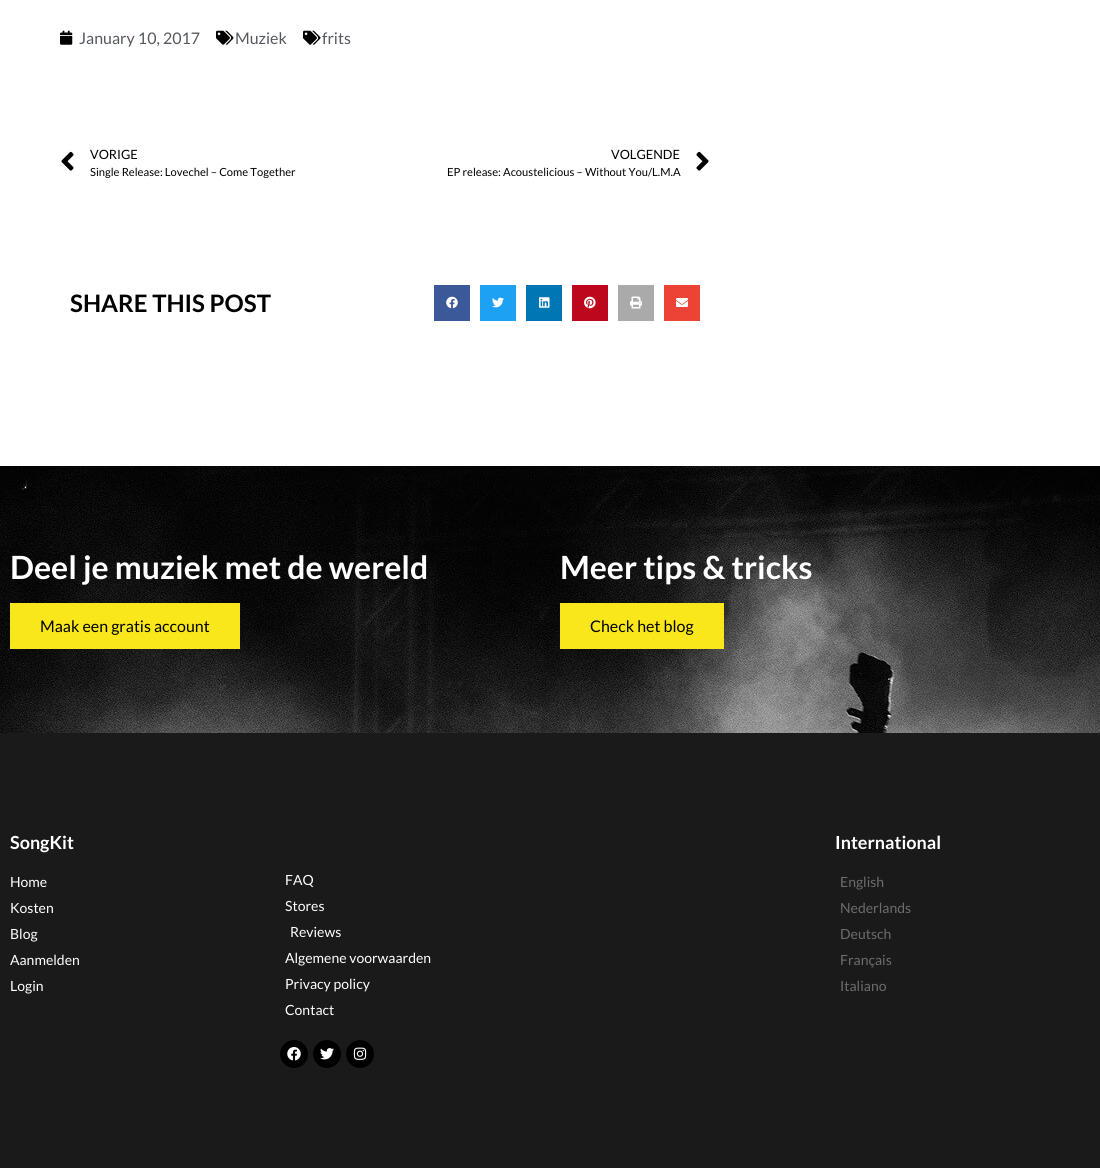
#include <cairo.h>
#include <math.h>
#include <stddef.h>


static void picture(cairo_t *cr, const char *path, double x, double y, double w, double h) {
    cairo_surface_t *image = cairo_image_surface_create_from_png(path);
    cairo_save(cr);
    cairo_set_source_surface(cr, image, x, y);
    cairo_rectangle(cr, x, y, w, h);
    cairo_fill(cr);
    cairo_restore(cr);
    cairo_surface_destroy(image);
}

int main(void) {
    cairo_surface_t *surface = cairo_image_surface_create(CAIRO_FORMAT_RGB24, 1100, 1168);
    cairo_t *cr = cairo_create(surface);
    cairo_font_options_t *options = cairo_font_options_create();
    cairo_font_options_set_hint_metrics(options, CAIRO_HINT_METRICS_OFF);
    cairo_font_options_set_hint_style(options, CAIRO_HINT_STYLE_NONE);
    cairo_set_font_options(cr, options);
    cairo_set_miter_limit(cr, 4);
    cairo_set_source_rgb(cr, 1, 1, 1);
    cairo_paint(cr);
    picture(cr, "img1.png", 60, 30, 13, 15);
    cairo_select_font_face(cr, "Lato", CAIRO_FONT_SLANT_NORMAL, CAIRO_FONT_WEIGHT_NORMAL);
    cairo_set_font_size(cr, 16);
    cairo_set_source_rgb(cr, 0.329, 0.349, 0.373);
    cairo_move_to(cr, 79, 44);
    cairo_show_text(cr, "January 10, 2017");
    picture(cr, "img2.png", 216, 30, 18, 15);
    cairo_move_to(cr, 235, 44);
    cairo_show_text(cr, "Muziek");
    picture(cr, "img2.png", 303, 30, 18, 15);
    cairo_move_to(cr, 322, 44);
    cairo_show_text(cr, "frits");
    picture(cr, "img3.png", 61, 151, 13, 20);
    cairo_set_font_size(cr, 12.75);
    cairo_set_source_rgb(cr, 0, 0, 0);
    cairo_move_to(cr, 90, 159);
    cairo_show_text(cr, "VORIGE");
    cairo_set_font_size(cr, 11.2);
    cairo_move_to(cr, 90, 176);
    cairo_show_text(cr, "Single Release: Lovechel – Come Together");
    cairo_set_font_size(cr, 12.75);
    cairo_move_to(cr, 611, 159);
    cairo_show_text(cr, "VOLGENDE");
    cairo_set_font_size(cr, 11.2);
    cairo_move_to(cr, 447, 176);
    cairo_show_text(cr, "EP release: Acoustelicious – Without You/L.M.A");
    picture(cr, "img4.png", 696, 151, 13, 20);
    cairo_select_font_face(cr, "Lato", CAIRO_FONT_SLANT_NORMAL, CAIRO_FONT_WEIGHT_BOLD);
    cairo_set_font_size(cr, 24);
    cairo_move_to(cr, 70, 312);
    cairo_show_text(cr, "SHARE THIS POST");
    cairo_set_source_rgb(cr, 0.231, 0.349, 0.596);
    cairo_rectangle(cr, 434, 285, 36, 36);
    cairo_fill(cr);
    picture(cr, "img5.png", 446, 296, 12, 13);
    cairo_set_source_rgb(cr, 0.114, 0.631, 0.949);
    cairo_rectangle(cr, 480, 285, 36, 36);
    cairo_fill(cr);
    picture(cr, "img6.png", 492, 297, 12, 11);
    cairo_set_source_rgb(cr, 0, 0.467, 0.71);
    cairo_rectangle(cr, 526, 285, 36, 36);
    cairo_fill(cr);
    picture(cr, "img7.png", 539, 297, 11, 11);
    cairo_set_source_rgb(cr, 0.741, 0.031, 0.11);
    cairo_rectangle(cr, 572, 285, 36, 36);
    cairo_fill(cr);
    picture(cr, "img8.png", 584, 296, 12, 13);
    cairo_set_source_rgb(cr, 0.667, 0.667, 0.667);
    cairo_rectangle(cr, 618, 285, 36, 36);
    cairo_fill(cr);
    picture(cr, "img9.png", 630, 296, 12, 13);
    cairo_set_source_rgb(cr, 0.918, 0.263, 0.208);
    cairo_rectangle(cr, 664, 285, 36, 36);
    cairo_fill(cr);
    picture(cr, "img10.png", 676, 298, 12, 9);
    picture(cr, "img11.png", 0, 466, 1100, 267);
    cairo_set_font_size(cr, 32);
    cairo_set_source_rgb(cr, 1, 1, 1);
    cairo_move_to(cr, 10, 579);
    cairo_show_text(cr, "Deel je muziek met de wereld");
    cairo_set_source_rgb(cr, 0.973, 0.906, 0.11);
    cairo_rectangle(cr, 10, 603, 230, 46);
    cairo_fill(cr);
    cairo_select_font_face(cr, "Lato", CAIRO_FONT_SLANT_NORMAL, CAIRO_FONT_WEIGHT_NORMAL);
    cairo_set_font_size(cr, 16);
    cairo_set_source_rgb(cr, 0, 0, 0);
    cairo_move_to(cr, 40, 632);
    cairo_show_text(cr, "Maak een gratis account");
    cairo_select_font_face(cr, "Lato", CAIRO_FONT_SLANT_NORMAL, CAIRO_FONT_WEIGHT_BOLD);
    cairo_set_font_size(cr, 32);
    cairo_set_source_rgb(cr, 1, 1, 1);
    cairo_move_to(cr, 560, 579);
    cairo_show_text(cr, "Meer tips & tricks");
    cairo_set_source_rgb(cr, 0.973, 0.906, 0.11);
    cairo_rectangle(cr, 560, 603, 164, 46);
    cairo_fill(cr);
    cairo_select_font_face(cr, "Lato", CAIRO_FONT_SLANT_NORMAL, CAIRO_FONT_WEIGHT_NORMAL);
    cairo_set_font_size(cr, 16);
    cairo_set_source_rgb(cr, 0, 0, 0);
    cairo_move_to(cr, 590, 632);
    cairo_show_text(cr, "Check het blog");
    cairo_set_source_rgb(cr, 0.102, 0.102, 0.102);
    cairo_rectangle(cr, 0, 733, 1100, 435);
    cairo_fill(cr);
    cairo_select_font_face(cr, "Lato", CAIRO_FONT_SLANT_NORMAL, CAIRO_FONT_WEIGHT_BOLD);
    cairo_set_font_size(cr, 18);
    cairo_set_source_rgb(cr, 1, 1, 1);
    cairo_move_to(cr, 10, 849);
    cairo_show_text(cr, "SongKit");
    cairo_select_font_face(cr, "Lato", CAIRO_FONT_SLANT_NORMAL, CAIRO_FONT_WEIGHT_NORMAL);
    cairo_set_font_size(cr, 14);
    cairo_move_to(cr, 10, 887);
    cairo_show_text(cr, "Home");
    cairo_move_to(cr, 10, 913);
    cairo_show_text(cr, "Kosten");
    cairo_move_to(cr, 10, 939);
    cairo_show_text(cr, "Blog");
    cairo_move_to(cr, 10, 965);
    cairo_show_text(cr, "Aanmelden");
    cairo_move_to(cr, 10, 991);
    cairo_show_text(cr, "Login");
    cairo_move_to(cr, 285, 885);
    cairo_show_text(cr, "FAQ");
    cairo_move_to(cr, 285, 911);
    cairo_show_text(cr, "Stores");
    cairo_move_to(cr, 290, 937);
    cairo_show_text(cr, "Reviews");
    cairo_move_to(cr, 285, 963);
    cairo_show_text(cr, "Algemene voorwaarden");
    cairo_move_to(cr, 285, 989);
    cairo_show_text(cr, "Privacy policy");
    cairo_move_to(cr, 285, 1015);
    cairo_show_text(cr, "Contact");
    cairo_set_source_rgb(cr, 0, 0, 0);
    cairo_new_path(cr);
    cairo_arc(cr, 294, 1054, 14, 0, 2 * M_PI);
    cairo_fill(cr);
    picture(cr, "img12.png", 287, 1047, 14, 14);
    cairo_arc(cr, 327, 1054, 14, 0, 2 * M_PI);
    cairo_fill(cr);
    picture(cr, "img13.png", 320, 1048, 14, 12);
    cairo_arc(cr, 360, 1054, 14, 0, 2 * M_PI);
    cairo_fill(cr);
    picture(cr, "img14.png", 353, 1047, 14, 13);
    cairo_select_font_face(cr, "Lato", CAIRO_FONT_SLANT_NORMAL, CAIRO_FONT_WEIGHT_BOLD);
    cairo_set_font_size(cr, 18);
    cairo_set_source_rgb(cr, 1, 1, 1);
    cairo_move_to(cr, 835, 849);
    cairo_show_text(cr, "International");
    cairo_select_font_face(cr, "Lato", CAIRO_FONT_SLANT_NORMAL, CAIRO_FONT_WEIGHT_NORMAL);
    cairo_set_font_size(cr, 14);
    cairo_set_source_rgb(cr, 0.424, 0.424, 0.424);
    cairo_move_to(cr, 840, 887);
    cairo_show_text(cr, "English");
    cairo_move_to(cr, 840, 913);
    cairo_show_text(cr, "Nederlands");
    cairo_move_to(cr, 840, 939);
    cairo_show_text(cr, "Deutsch");
    cairo_move_to(cr, 840, 965);
    cairo_show_text(cr, "Français");
    cairo_move_to(cr, 840, 991);
    cairo_show_text(cr, "Italiano");
    cairo_surface_write_to_png(surface, "page.png");
    cairo_font_options_destroy(options);
    cairo_destroy(cr);
    cairo_surface_destroy(surface);
    return 0;
}
